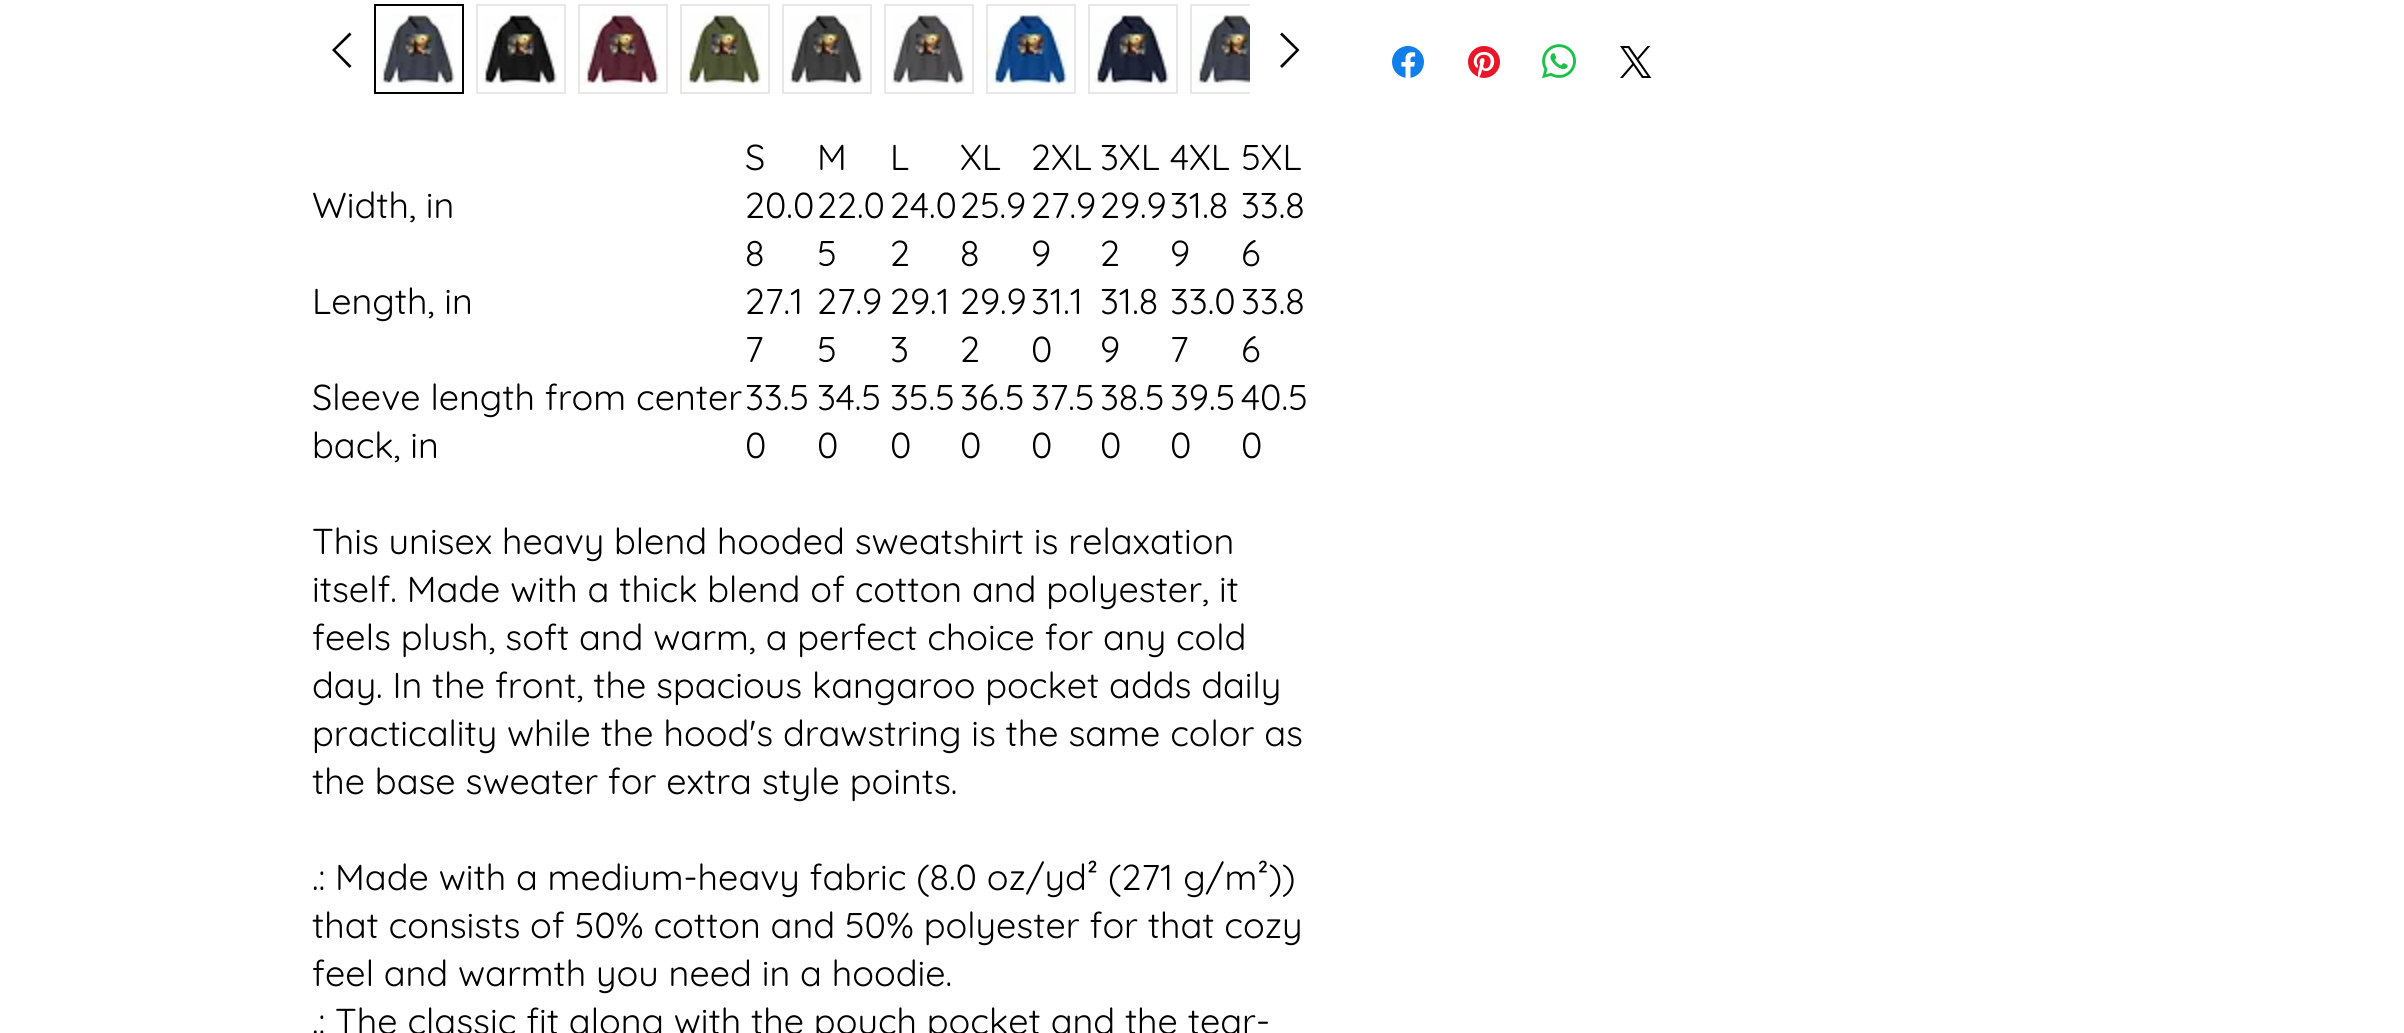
#include <cairo.h>
#include <math.h>
#include <stddef.h>


static void picture(cairo_t *cr, const char *path, double x, double y, double w, double h) {
    cairo_surface_t *image = cairo_image_surface_create_from_png(path);
    cairo_save(cr);
    cairo_set_source_surface(cr, image, x, y);
    cairo_rectangle(cr, x, y, w, h);
    cairo_fill(cr);
    cairo_restore(cr);
    cairo_surface_destroy(image);
}

int main(void) {
    cairo_surface_t *surface = cairo_image_surface_create(CAIRO_FORMAT_RGB24, 2404, 1033);
    cairo_t *cr = cairo_create(surface);
    cairo_font_options_t *options = cairo_font_options_create();
    cairo_font_options_set_hint_metrics(options, CAIRO_HINT_METRICS_OFF);
    cairo_font_options_set_hint_style(options, CAIRO_HINT_STYLE_NONE);
    cairo_set_font_options(cr, options);
    cairo_set_miter_limit(cr, 4);
    cairo_set_source_rgb(cr, 1, 1, 1);
    cairo_paint(cr);
    picture(cr, "img1.png", 1392, 46, 32, 32);
    picture(cr, "img2.png", 1468, 46, 32, 32);
    picture(cr, "img3.png", 1542, 44, 34, 35);
    picture(cr, "img4.png", 1620, 46, 32, 32);
    cairo_set_source_rgb(cr, 0, 0, 0);
    cairo_set_fill_rule(cr, CAIRO_FILL_RULE_EVEN_ODD);
    cairo_new_path(cr);
    cairo_move_to(cr, 349.5, 32.5);
    cairo_line_to(cr, 351.5, 34.5);
    cairo_line_to(cr, 335.5, 50);
    cairo_line_to(cr, 351.5, 66);
    cairo_line_to(cr, 349.5, 68);
    cairo_line_to(cr, 332, 50);
    cairo_close_path(cr);
    cairo_fill(cr);
    cairo_rectangle(cr, 375, 5, 88, 88);
    cairo_stroke(cr);
    picture(cr, "img5.png", 376, 14, 79, 73);
    cairo_rectangle(cr, 477, 5, 88, 88);
    cairo_set_source_rgb(cr, 0.91, 0.902, 0.902);
    cairo_stroke(cr);
    picture(cr, "img6.png", 482, 14, 76, 72);
    cairo_rectangle(cr, 579, 5, 88, 88);
    cairo_stroke(cr);
    picture(cr, "img7.png", 580, 6, 81, 80);
    cairo_rectangle(cr, 681, 5, 88, 88);
    cairo_stroke(cr);
    picture(cr, "img8.png", 682, 12, 81, 80);
    cairo_rectangle(cr, 783, 5, 88, 88);
    cairo_stroke(cr);
    picture(cr, "img9.png", 789, 14, 75, 72);
    cairo_rectangle(cr, 885, 5, 88, 88);
    cairo_stroke(cr);
    picture(cr, "img10.png", 891, 13, 74, 73);
    cairo_rectangle(cr, 987, 5, 88, 88);
    cairo_stroke(cr);
    picture(cr, "img11.png", 988, 6, 80, 82);
    cairo_rectangle(cr, 1089, 5, 88, 88);
    cairo_stroke(cr);
    picture(cr, "img12.png", 1094, 15, 76, 71);
    cairo_save(cr);
    cairo_set_fill_rule(cr, CAIRO_FILL_RULE_WINDING);
    cairo_rectangle(cr, 366, 0, 884, 102);
    cairo_clip(cr);
    cairo_rectangle(cr, 1191, 5, 88, 88);
    cairo_stroke(cr);
    cairo_restore(cr);
    picture(cr, "img13.png", 1192, 14, 58, 72);
    cairo_set_source_rgb(cr, 0, 0, 0);
    cairo_new_path(cr);
    cairo_move_to(cr, 1282, 32.5);
    cairo_line_to(cr, 1299.5, 50);
    cairo_line_to(cr, 1282, 68);
    cairo_line_to(cr, 1280, 66);
    cairo_line_to(cr, 1296, 50);
    cairo_line_to(cr, 1280, 34.5);
    cairo_close_path(cr);
    cairo_fill(cr);
    cairo_select_font_face(cr, "Quicksand", CAIRO_FONT_SLANT_NORMAL, CAIRO_FONT_WEIGHT_NORMAL);
    cairo_set_font_size(cr, 36);
    cairo_move_to(cr, 745, 170);
    cairo_show_text(cr, "S");
    cairo_move_to(cr, 817, 170);
    cairo_show_text(cr, "M");
    cairo_move_to(cr, 890, 170);
    cairo_show_text(cr, "L");
    cairo_move_to(cr, 960, 170);
    cairo_show_text(cr, "XL");
    cairo_move_to(cr, 1031, 170);
    cairo_show_text(cr, "2XL");
    cairo_move_to(cr, 1100, 170);
    cairo_show_text(cr, "3XL");
    cairo_move_to(cr, 1170, 170);
    cairo_show_text(cr, "4XL");
    cairo_move_to(cr, 1241, 170);
    cairo_show_text(cr, "5XL");
    cairo_move_to(cr, 312, 218);
    cairo_show_text(cr, "Width, in");
    cairo_move_to(cr, 745, 218);
    cairo_show_text(cr, "20.0");
    cairo_move_to(cr, 745, 266);
    cairo_show_text(cr, "8");
    cairo_move_to(cr, 817, 218);
    cairo_show_text(cr, "22.0");
    cairo_move_to(cr, 817, 266);
    cairo_show_text(cr, "5");
    cairo_move_to(cr, 890, 218);
    cairo_show_text(cr, "24.0");
    cairo_move_to(cr, 890, 266);
    cairo_show_text(cr, "2");
    cairo_move_to(cr, 960, 218);
    cairo_show_text(cr, "25.9");
    cairo_move_to(cr, 960, 266);
    cairo_show_text(cr, "8");
    cairo_move_to(cr, 1031, 218);
    cairo_show_text(cr, "27.9");
    cairo_move_to(cr, 1031, 266);
    cairo_show_text(cr, "9");
    cairo_move_to(cr, 1100, 218);
    cairo_show_text(cr, "29.9");
    cairo_move_to(cr, 1100, 266);
    cairo_show_text(cr, "2");
    cairo_move_to(cr, 1170, 218);
    cairo_show_text(cr, "31.8");
    cairo_move_to(cr, 1170, 266);
    cairo_show_text(cr, "9");
    cairo_move_to(cr, 1241, 218);
    cairo_show_text(cr, "33.8");
    cairo_move_to(cr, 1241, 266);
    cairo_show_text(cr, "6");
    cairo_move_to(cr, 312, 314);
    cairo_show_text(cr, "Length, in");
    cairo_move_to(cr, 745, 314);
    cairo_show_text(cr, "27.1");
    cairo_move_to(cr, 745, 362);
    cairo_show_text(cr, "7");
    cairo_move_to(cr, 817, 314);
    cairo_show_text(cr, "27.9");
    cairo_move_to(cr, 817, 362);
    cairo_show_text(cr, "5");
    cairo_move_to(cr, 890, 314);
    cairo_show_text(cr, "29.1");
    cairo_move_to(cr, 890, 362);
    cairo_show_text(cr, "3");
    cairo_move_to(cr, 960, 314);
    cairo_show_text(cr, "29.9");
    cairo_move_to(cr, 960, 362);
    cairo_show_text(cr, "2");
    cairo_move_to(cr, 1031, 314);
    cairo_show_text(cr, "31.1");
    cairo_move_to(cr, 1031, 362);
    cairo_show_text(cr, "0");
    cairo_move_to(cr, 1100, 314);
    cairo_show_text(cr, "31.8");
    cairo_move_to(cr, 1100, 362);
    cairo_show_text(cr, "9");
    cairo_move_to(cr, 1170, 314);
    cairo_show_text(cr, "33.0");
    cairo_move_to(cr, 1170, 362);
    cairo_show_text(cr, "7");
    cairo_move_to(cr, 1241, 314);
    cairo_show_text(cr, "33.8");
    cairo_move_to(cr, 1241, 362);
    cairo_show_text(cr, "6");
    cairo_move_to(cr, 312, 410);
    cairo_show_text(cr, "Sleeve length from center");
    cairo_move_to(cr, 312, 458);
    cairo_show_text(cr, "back, in");
    cairo_move_to(cr, 745, 410);
    cairo_show_text(cr, "33.5");
    cairo_move_to(cr, 745, 458);
    cairo_show_text(cr, "0");
    cairo_move_to(cr, 817, 410);
    cairo_show_text(cr, "34.5");
    cairo_move_to(cr, 817, 458);
    cairo_show_text(cr, "0");
    cairo_move_to(cr, 890, 410);
    cairo_show_text(cr, "35.5");
    cairo_move_to(cr, 890, 458);
    cairo_show_text(cr, "0");
    cairo_move_to(cr, 960, 410);
    cairo_show_text(cr, "36.5");
    cairo_move_to(cr, 960, 458);
    cairo_show_text(cr, "0");
    cairo_move_to(cr, 1031, 410);
    cairo_show_text(cr, "37.5");
    cairo_move_to(cr, 1031, 458);
    cairo_show_text(cr, "0");
    cairo_move_to(cr, 1100, 410);
    cairo_show_text(cr, "38.5");
    cairo_move_to(cr, 1100, 458);
    cairo_show_text(cr, "0");
    cairo_move_to(cr, 1170, 410);
    cairo_show_text(cr, "39.5");
    cairo_move_to(cr, 1170, 458);
    cairo_show_text(cr, "0");
    cairo_move_to(cr, 1241, 410);
    cairo_show_text(cr, "40.5");
    cairo_move_to(cr, 1241, 458);
    cairo_show_text(cr, "0");
    cairo_move_to(cr, 312, 554);
    cairo_show_text(cr, "This unisex heavy blend hooded sweatshirt is relaxation");
    cairo_move_to(cr, 312, 602);
    cairo_show_text(cr, "itself. Made with a thick blend of cotton and polyester, it");
    cairo_move_to(cr, 312, 650);
    cairo_show_text(cr, "feels plush, soft and warm, a perfect choice for any cold");
    cairo_move_to(cr, 312, 698);
    cairo_show_text(cr, "day. In the front, the spacious kangaroo pocket adds daily");
    cairo_move_to(cr, 312, 746);
    cairo_show_text(cr, "practicality while the hood's drawstring is the same color as");
    cairo_move_to(cr, 312, 794);
    cairo_show_text(cr, "the base sweater for extra style points.");
    cairo_move_to(cr, 312, 890);
    cairo_show_text(cr, ".: Made with a medium-heavy fabric (8.0 oz/yd² (271 g/m²))");
    cairo_move_to(cr, 312, 938);
    cairo_show_text(cr, "that consists of 50% cotton and 50% polyester for that cozy");
    cairo_move_to(cr, 312, 986);
    cairo_show_text(cr, "feel and warmth you need in a hoodie.");
    cairo_move_to(cr, 312, 1034);
    cairo_show_text(cr, ".: The classic fit along with the pouch pocket and the tear-");
    cairo_surface_write_to_png(surface, "page.png");
    cairo_font_options_destroy(options);
    cairo_destroy(cr);
    cairo_surface_destroy(surface);
    return 0;
}
